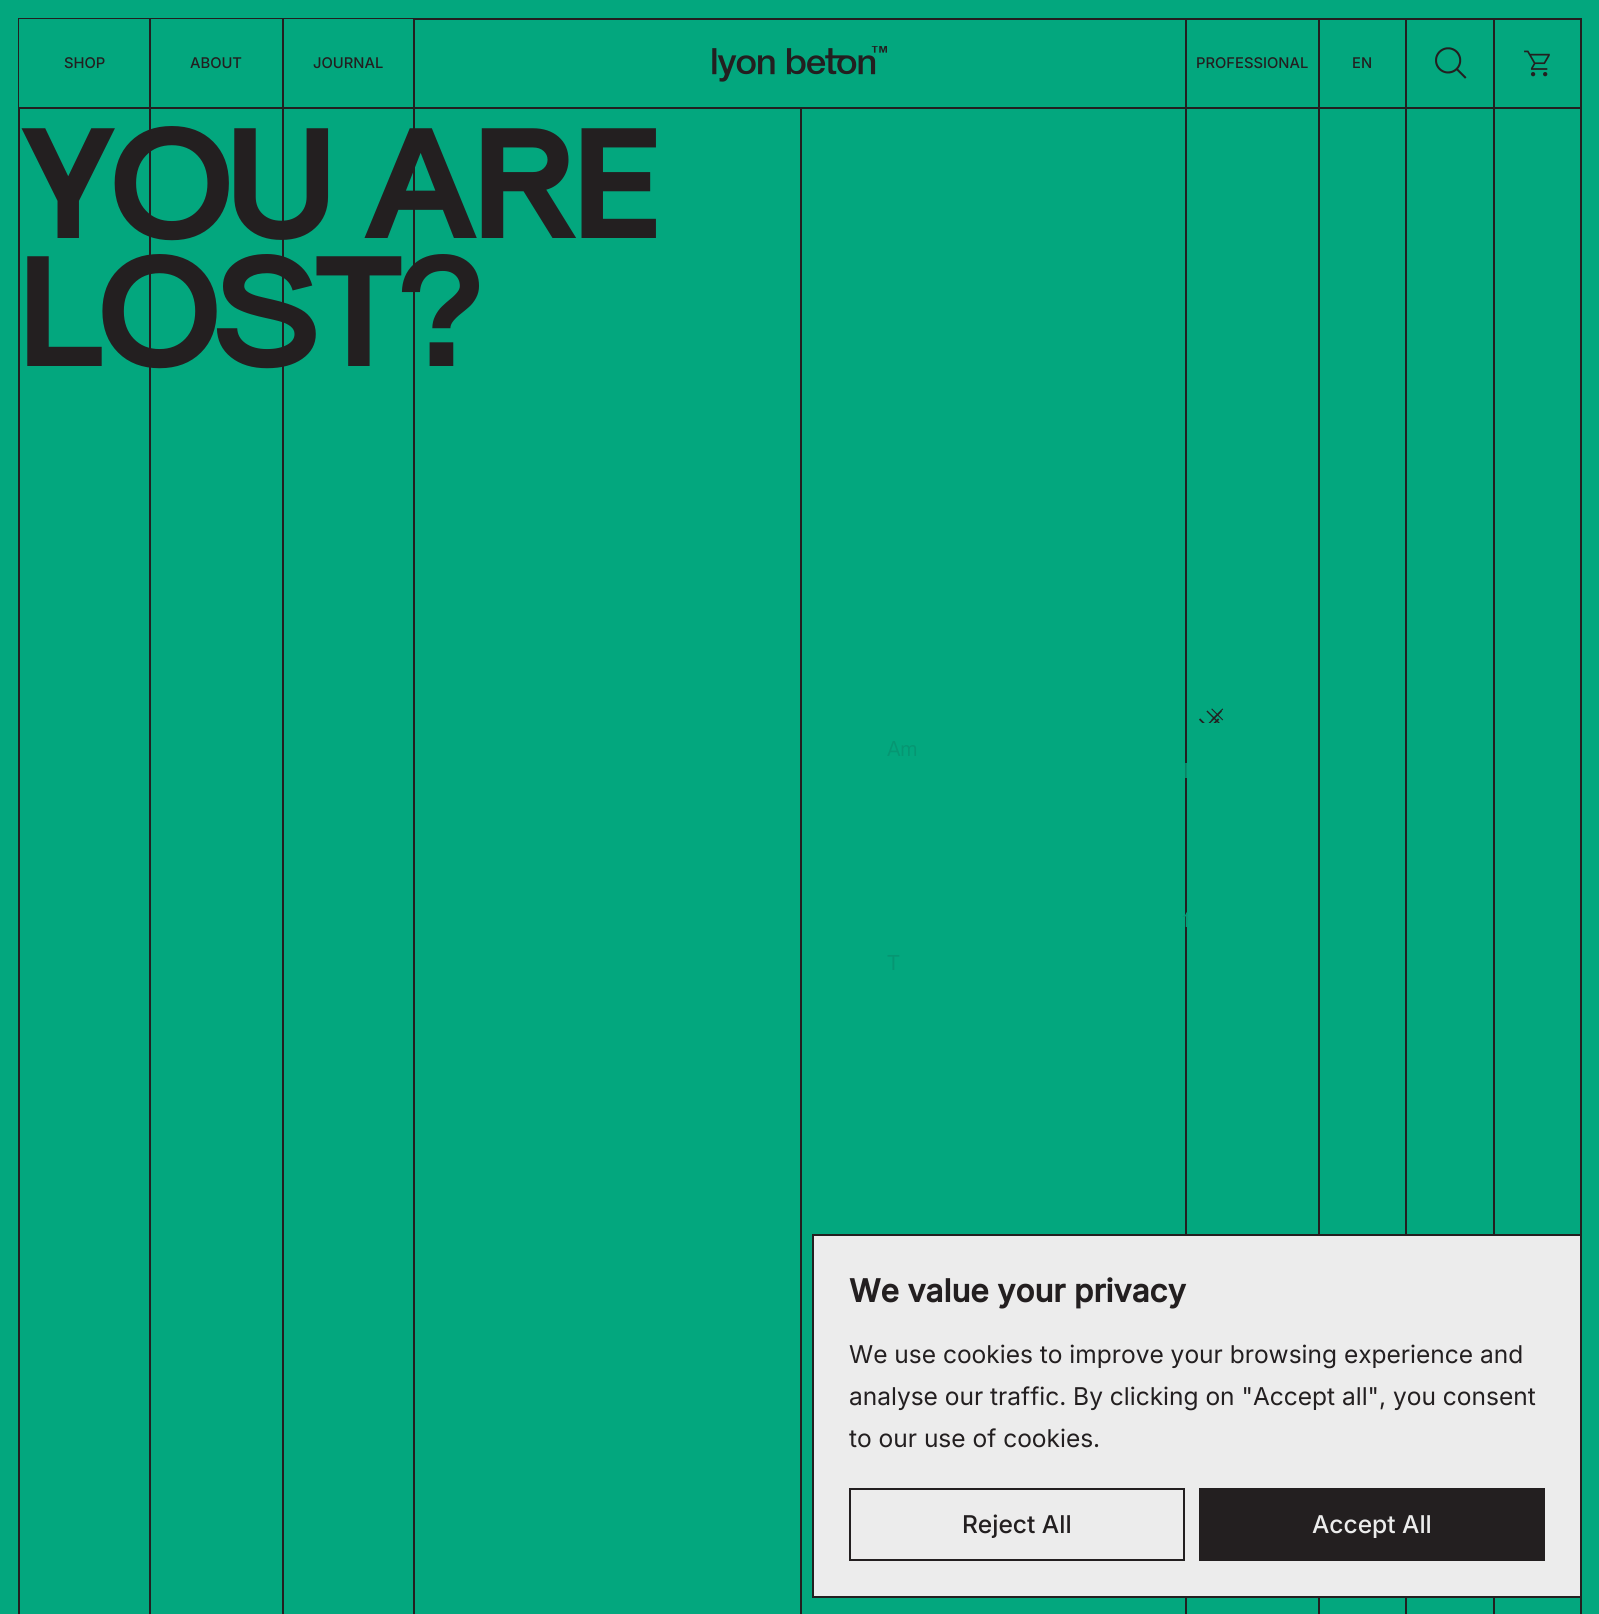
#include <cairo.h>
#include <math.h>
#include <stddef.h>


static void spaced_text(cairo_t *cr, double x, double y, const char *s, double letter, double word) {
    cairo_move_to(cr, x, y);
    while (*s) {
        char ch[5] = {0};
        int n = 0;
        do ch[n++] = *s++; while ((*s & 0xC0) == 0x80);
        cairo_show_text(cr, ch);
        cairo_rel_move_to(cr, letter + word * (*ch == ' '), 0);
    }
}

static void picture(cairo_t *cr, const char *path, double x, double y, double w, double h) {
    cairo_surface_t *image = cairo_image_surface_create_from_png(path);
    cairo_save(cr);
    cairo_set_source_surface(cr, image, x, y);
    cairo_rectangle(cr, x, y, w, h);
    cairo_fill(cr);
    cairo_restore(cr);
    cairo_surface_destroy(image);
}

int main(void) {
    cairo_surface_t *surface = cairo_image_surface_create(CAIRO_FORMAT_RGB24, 1599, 1614);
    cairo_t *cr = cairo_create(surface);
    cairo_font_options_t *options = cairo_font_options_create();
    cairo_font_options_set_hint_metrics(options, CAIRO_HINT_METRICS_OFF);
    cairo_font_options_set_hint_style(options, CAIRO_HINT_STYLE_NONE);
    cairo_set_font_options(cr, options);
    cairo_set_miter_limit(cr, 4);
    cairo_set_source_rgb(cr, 0.012, 0.655, 0.494);
    cairo_paint(cr);
    cairo_rectangle(cr, 19, 19, 1562, 89);
    cairo_set_source_rgb(cr, 0.137, 0.122, 0.125);
    cairo_stroke(cr);
    cairo_set_source_rgb(cr, 0.012, 0.655, 0.494);
    cairo_rectangle(cr, 151, 19, 262, 1);
    cairo_fill(cr);
    cairo_rectangle(cr, 19, 19, 130, 88);
    cairo_fill(cr);
    cairo_select_font_face(cr, "Inter Medium", CAIRO_FONT_SLANT_NORMAL, CAIRO_FONT_WEIGHT_NORMAL);
    cairo_set_font_size(cr, 14.75);
    cairo_set_source_rgb(cr, 0.137, 0.122, 0.125);
    cairo_move_to(cr, 64, 68);
    cairo_show_text(cr, "SHOP");
    cairo_rectangle(cr, 149, 19, 2, 88);
    cairo_fill(cr);
    cairo_rectangle(cr, 282, 19, 2, 88);
    cairo_fill(cr);
    cairo_move_to(cr, 190, 68);
    cairo_show_text(cr, "ABOUT");
    cairo_rectangle(cr, 413, 19, 2, 88);
    cairo_fill(cr);
    cairo_move_to(cr, 313, 68);
    cairo_show_text(cr, "JOURNAL");
    picture(cr, "img1.png", 712, 46, 175, 36);
    cairo_rectangle(cr, 1185, 19, 2, 88);
    cairo_fill(cr);
    cairo_move_to(cr, 1196, 68);
    cairo_show_text(cr, "PROFESSIONAL");
    cairo_rectangle(cr, 1318, 19, 2, 88);
    cairo_fill(cr);
    cairo_move_to(cr, 1352, 68);
    cairo_show_text(cr, "EN");
    cairo_rectangle(cr, 1405, 19, 2, 88);
    cairo_fill(cr);
    picture(cr, "img2.png", 1435, 47, 32, 32);
    cairo_rectangle(cr, 1493, 19, 2, 88);
    cairo_fill(cr);
    picture(cr, "img3.png", 1524, 50, 26, 27);
    cairo_rectangle(cr, 18, 109, 2, 1505);
    cairo_fill(cr);
    cairo_rectangle(cr, 149, 109, 2, 1505);
    cairo_fill(cr);
    cairo_rectangle(cr, 282, 109, 2, 1505);
    cairo_fill(cr);
    cairo_rectangle(cr, 413, 109, 2, 1505);
    cairo_fill(cr);
    cairo_rectangle(cr, 800, 109, 2, 1505);
    cairo_fill(cr);
    cairo_rectangle(cr, 1185, 109, 2, 1505);
    cairo_fill(cr);
    cairo_rectangle(cr, 1318, 109, 2, 1505);
    cairo_fill(cr);
    cairo_rectangle(cr, 1405, 109, 2, 1505);
    cairo_fill(cr);
    cairo_rectangle(cr, 1493, 109, 2, 1505);
    cairo_fill(cr);
    cairo_rectangle(cr, 1580, 109, 2, 1505);
    cairo_fill(cr);
    cairo_select_font_face(cr, "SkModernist", CAIRO_FONT_SLANT_NORMAL, CAIRO_FONT_WEIGHT_BOLD);
    cairo_set_font_size(cr, 160);
    spaced_text(cr, 18, 238, "YOU ARE", -8, 0);
    spaced_text(cr, 18, 366, "LOST?", -8, 0);
    picture(cr, "img5.png", 1199, 718, 21, 5);
    picture(cr, "img6.png", 1206, 710, 16, 13);
    picture(cr, "img4.png", 1211, 708, 13, 13);
    cairo_select_font_face(cr, "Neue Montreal", CAIRO_FONT_SLANT_NORMAL, CAIRO_FONT_WEIGHT_NORMAL);
    cairo_set_font_size(cr, 21);
    cairo_set_source_rgb(cr, 0.027, 0.588, 0.447);
    cairo_move_to(cr, 887, 756);
    cairo_show_text(cr, "Am");
    cairo_set_source_rgb(cr, 0.024, 0.612, 0.463);
    cairo_move_to(cr, 1184, 778);
    cairo_show_text(cr, "l");
    cairo_move_to(cr, 1182, 927);
    cairo_show_text(cr, "1");
    cairo_set_source_rgb(cr, 0.027, 0.588, 0.447);
    cairo_move_to(cr, 887, 970);
    cairo_show_text(cr, "T");
    cairo_set_source_rgb(cr, 0.922, 0.922, 0.922);
    cairo_rectangle(cr, 813, 1235, 768, 362);
    cairo_fill_preserve(cr);
    cairo_set_source_rgb(cr, 0.137, 0.122, 0.125);
    cairo_stroke(cr);
    cairo_select_font_face(cr, "Inter", CAIRO_FONT_SLANT_NORMAL, CAIRO_FONT_WEIGHT_BOLD);
    cairo_set_font_size(cr, 31.5);
    cairo_move_to(cr, 849, 1302);
    cairo_show_text(cr, "We value your privacy");
    cairo_select_font_face(cr, "Inter", CAIRO_FONT_SLANT_NORMAL, CAIRO_FONT_WEIGHT_NORMAL);
    cairo_set_font_size(cr, 24.5);
    cairo_move_to(cr, 849, 1363);
    cairo_show_text(cr, "We use cookies to improve your browsing experience and");
    cairo_move_to(cr, 849, 1405);
    cairo_show_text(cr, "analyse our traffic. By clicking on \"Accept all\", you consent");
    cairo_move_to(cr, 849, 1447);
    cairo_show_text(cr, "to our use of cookies.");
    cairo_rectangle(cr, 850, 1489, 334, 71);
    cairo_stroke(cr);
    cairo_select_font_face(cr, "Inter Medium", CAIRO_FONT_SLANT_NORMAL, CAIRO_FONT_WEIGHT_NORMAL);
    cairo_move_to(cr, 962, 1533);
    cairo_show_text(cr, "Reject All");
    cairo_rectangle(cr, 1199, 1488, 346, 73);
    cairo_fill(cr);
    cairo_set_source_rgb(cr, 0.922, 0.922, 0.922);
    cairo_move_to(cr, 1312, 1533);
    cairo_show_text(cr, "Accept All");
    cairo_surface_write_to_png(surface, "page.png");
    cairo_font_options_destroy(options);
    cairo_destroy(cr);
    cairo_surface_destroy(surface);
    return 0;
}
